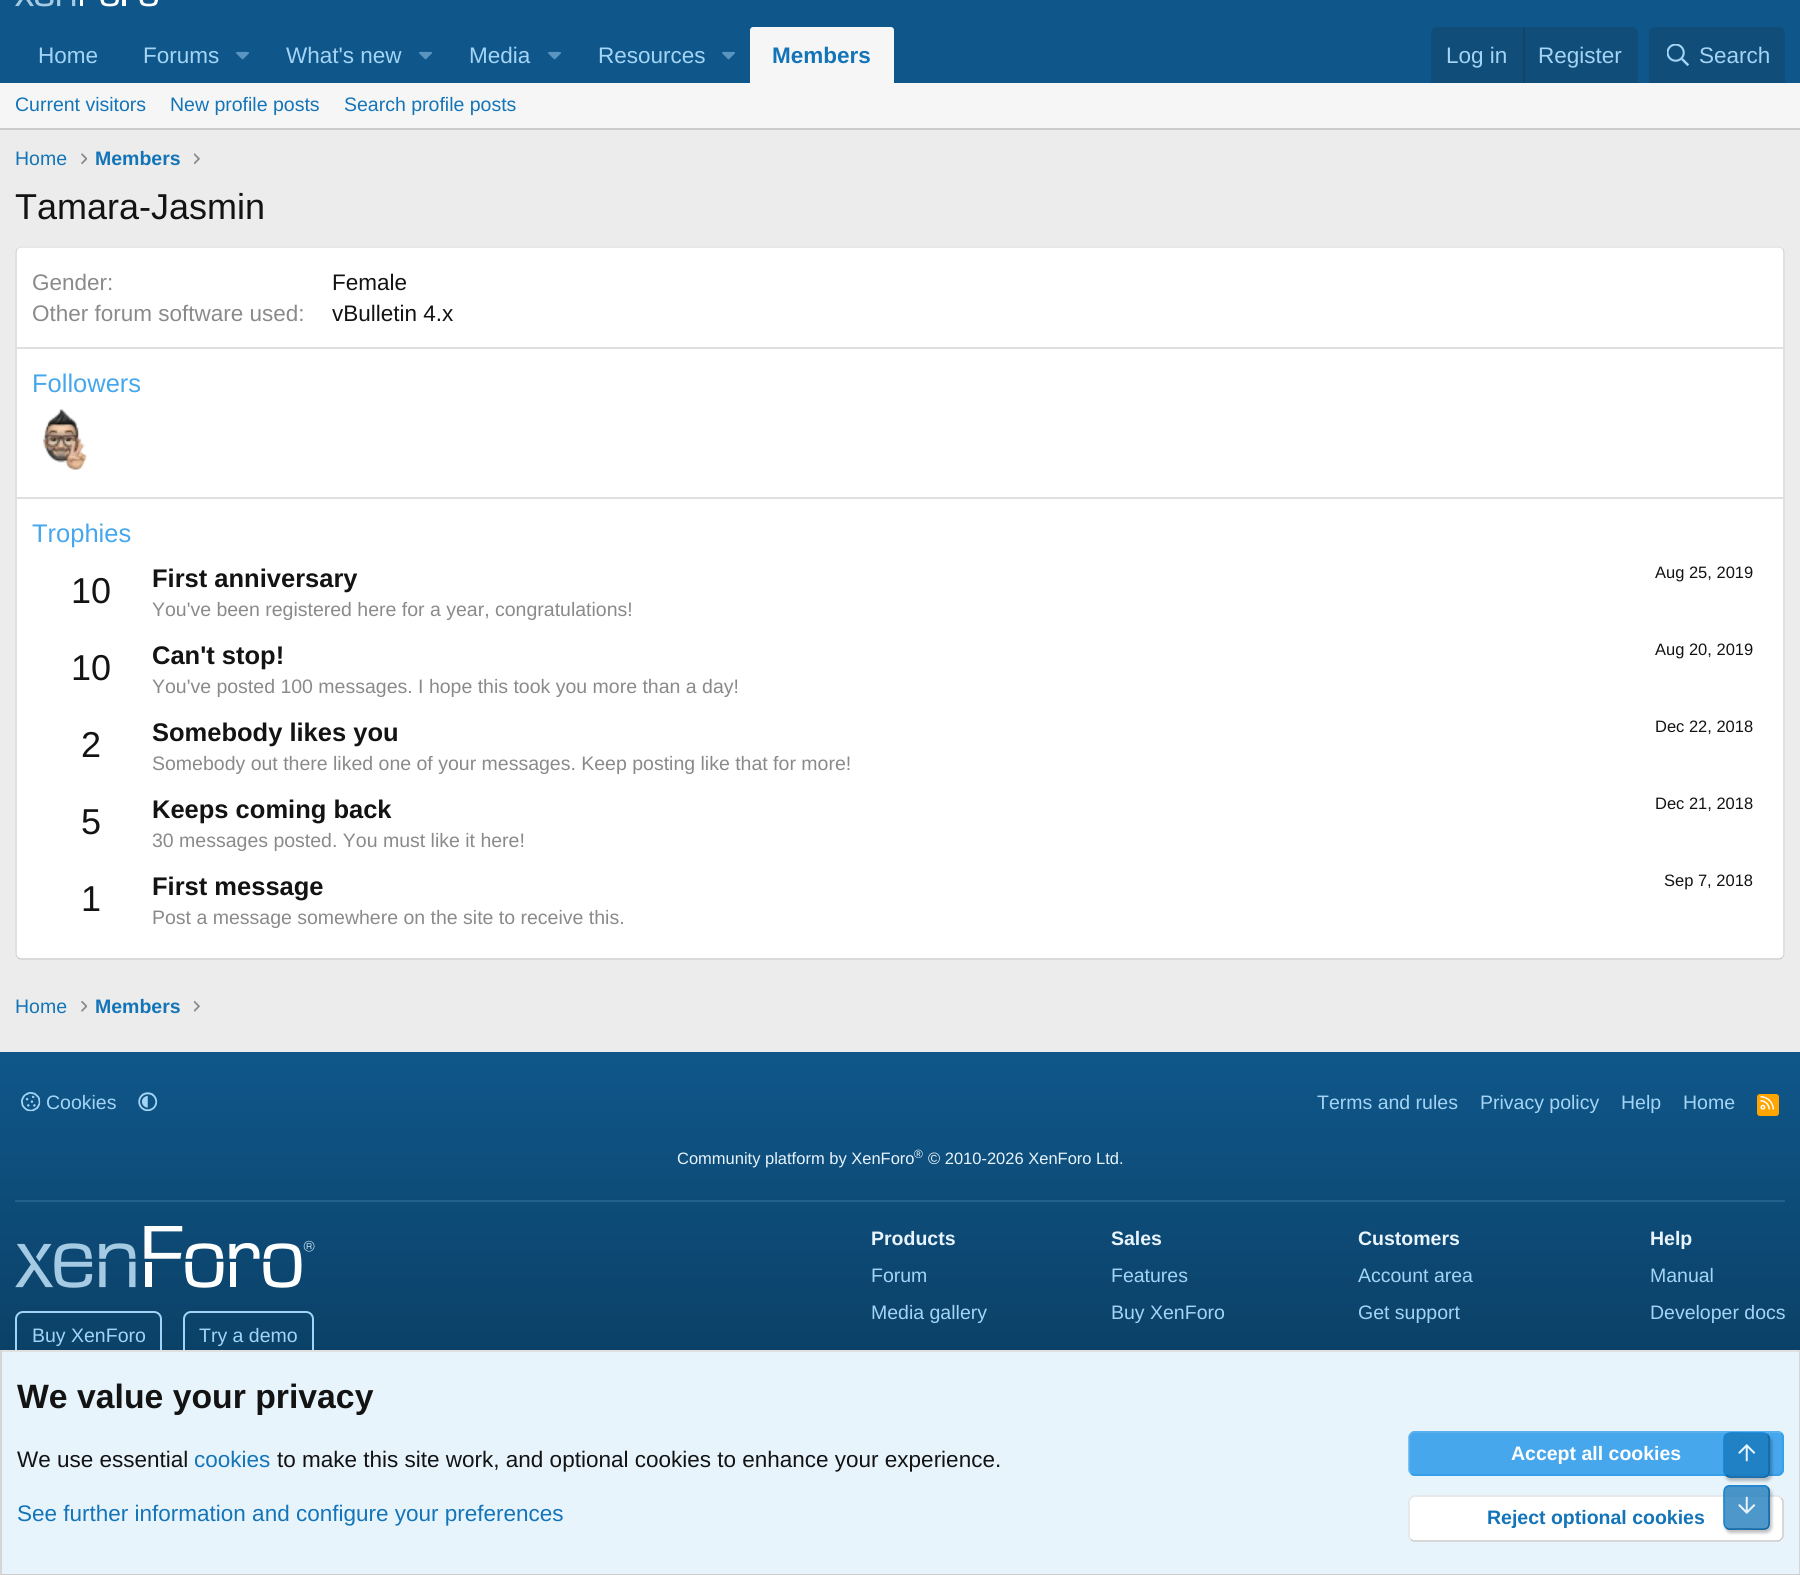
#include <cairo.h>
#include <math.h>
#include <stddef.h>


static void round_rect(cairo_t *cr, double x, double y, double w, double h, double r) {
    cairo_new_sub_path(cr);
    cairo_arc(cr, x + w - r, y + h - r, r, 0, M_PI / 2);
    cairo_arc(cr, x + r, y + h - r, r, M_PI / 2, M_PI);
    cairo_arc(cr, x + r, y + r, r, M_PI, 1.5 * M_PI);
    cairo_arc(cr, x + w - r, y + r, r, 1.5 * M_PI, 2 * M_PI);
    cairo_close_path(cr);
}

static void shadow(cairo_t *cr, double x, double y, double w, double h, double r, double blur, double alpha) {
    cairo_push_group_with_content(cr, CAIRO_CONTENT_ALPHA);
    cairo_set_operator(cr, CAIRO_OPERATOR_SOURCE);
    for (int i = 15; i >= -15 && fmin(w, h) + blur * i / 3 > 0; i -= 2) {
        double e = blur * i / 6;
        cairo_set_source_rgba(cr, 0, 0, 0, alpha * erfc((i - 1) / 8.5) / 2);
        round_rect(cr, x - e, y - e, w + 2 * e, h + 2 * e, fmax(0, fmin(r + e + blur * .6, fmin(w, h) / 2 + e)));
        cairo_fill(cr);
    }
    cairo_pattern_t *soft = cairo_pop_group(cr);
    cairo_mask(cr, soft);
    cairo_pattern_destroy(soft);
}

static void picture(cairo_t *cr, const char *path, double x, double y, double w, double h) {
    cairo_surface_t *image = cairo_image_surface_create_from_png(path);
    cairo_save(cr);
    cairo_set_source_surface(cr, image, x, y);
    cairo_rectangle(cr, x, y, w, h);
    cairo_fill(cr);
    cairo_restore(cr);
    cairo_surface_destroy(image);
}

int main(void) {
    cairo_surface_t *surface = cairo_image_surface_create(CAIRO_FORMAT_RGB24, 1800, 1575);
    cairo_t *cr = cairo_create(surface);
    cairo_font_options_t *options = cairo_font_options_create();
    cairo_font_options_set_hint_metrics(options, CAIRO_HINT_METRICS_OFF);
    cairo_font_options_set_hint_style(options, CAIRO_HINT_STYLE_NONE);
    cairo_set_font_options(cr, options);
    cairo_set_miter_limit(cr, 4);
    cairo_pattern_t *gradient;
    cairo_set_source_rgb(cr, 0.922, 0.922, 0.922);
    cairo_paint(cr);
    cairo_set_source_rgb(cr, 0.059, 0.341, 0.541);
    cairo_rectangle(cr, 0, 0, 1800, 83);
    cairo_fill(cr);
    picture(cr, "img1.png", 15, 0, 143, 7);
    cairo_select_font_face(cr, "Liberation Sans", CAIRO_FONT_SLANT_NORMAL, CAIRO_FONT_WEIGHT_NORMAL);
    cairo_set_font_size(cr, 22.5);
    cairo_set_source_rgb(cr, 0.639, 0.831, 0.961);
    cairo_move_to(cr, 38, 63);
    cairo_show_text(cr, "Home");
    cairo_move_to(cr, 143, 63);
    cairo_show_text(cr, "Forums");
    picture(cr, "img2.png", 236, 51, 13, 9);
    cairo_move_to(cr, 286, 63);
    cairo_show_text(cr, "What's new");
    picture(cr, "img2.png", 419, 51, 13, 9);
    cairo_move_to(cr, 469, 63);
    cairo_show_text(cr, "Media");
    picture(cr, "img2.png", 548, 51, 13, 9);
    cairo_move_to(cr, 598, 63);
    cairo_show_text(cr, "Resources");
    picture(cr, "img2.png", 722, 51, 13, 9);
    cairo_set_source_rgb(cr, 0.961, 0.961, 0.961);
    cairo_new_path(cr);
    cairo_move_to(cr, 753, 27);
    cairo_line_to(cr, 891, 27);
    cairo_curve_to(cr, 892.5, 27, 894, 28.5, 894, 30);
    cairo_line_to(cr, 894, 83);
    cairo_line_to(cr, 750, 83);
    cairo_line_to(cr, 750, 30);
    cairo_curve_to(cr, 750, 28.5, 751.5, 27, 753, 27);
    cairo_close_path(cr);
    cairo_fill(cr);
    cairo_select_font_face(cr, "Liberation Sans", CAIRO_FONT_SLANT_NORMAL, CAIRO_FONT_WEIGHT_BOLD);
    cairo_set_source_rgb(cr, 0.078, 0.455, 0.722);
    cairo_move_to(cr, 772, 63);
    cairo_show_text(cr, "Members");
    cairo_set_source_rgb(cr, 0.063, 0.302, 0.471);
    cairo_new_path(cr);
    cairo_move_to(cr, 1437, 27);
    cairo_line_to(cr, 1632, 27);
    cairo_curve_to(cr, 1635.5, 27, 1638, 29.5, 1638, 33);
    cairo_line_to(cr, 1638, 83);
    cairo_line_to(cr, 1431, 83);
    cairo_line_to(cr, 1431, 33);
    cairo_curve_to(cr, 1431, 29.5, 1433.5, 27, 1437, 27);
    cairo_close_path(cr);
    cairo_fill(cr);
    cairo_select_font_face(cr, "Liberation Sans", CAIRO_FONT_SLANT_NORMAL, CAIRO_FONT_WEIGHT_NORMAL);
    cairo_set_source_rgb(cr, 0.639, 0.831, 0.961);
    cairo_move_to(cr, 1446, 63);
    cairo_show_text(cr, "Log in");
    cairo_set_source_rgb(cr, 0.067, 0.267, 0.412);
    cairo_rectangle(cr, 1523, 27, 2, 56);
    cairo_fill(cr);
    cairo_set_source_rgb(cr, 0.639, 0.831, 0.961);
    cairo_move_to(cr, 1538, 63);
    cairo_show_text(cr, "Register");
    cairo_set_source_rgb(cr, 0.063, 0.302, 0.471);
    cairo_new_path(cr);
    cairo_move_to(cr, 1655, 27);
    cairo_line_to(cr, 1779, 27);
    cairo_curve_to(cr, 1782.5, 27, 1785, 29.5, 1785, 33);
    cairo_line_to(cr, 1785, 83);
    cairo_line_to(cr, 1649, 83);
    cairo_line_to(cr, 1649, 33);
    cairo_curve_to(cr, 1649, 29.5, 1651.5, 27, 1655, 27);
    cairo_close_path(cr);
    cairo_fill(cr);
    picture(cr, "img3.png", 1667, 44, 22, 22);
    cairo_set_source_rgb(cr, 0.639, 0.831, 0.961);
    cairo_move_to(cr, 1699, 63);
    cairo_show_text(cr, "Search");
    cairo_set_source_rgb(cr, 0.961, 0.961, 0.961);
    cairo_rectangle(cr, 0, 83, 1800, 45);
    cairo_fill(cr);
    cairo_set_source_rgb(cr, 0.8, 0.8, 0.8);
    cairo_rectangle(cr, 0, 128, 1800, 2);
    cairo_fill(cr);
    cairo_set_font_size(cr, 19.5);
    cairo_set_source_rgb(cr, 0.078, 0.455, 0.722);
    cairo_move_to(cr, 15, 111);
    cairo_show_text(cr, "Current visitors");
    cairo_move_to(cr, 170, 111);
    cairo_show_text(cr, "New profile posts");
    cairo_move_to(cr, 344, 111);
    cairo_show_text(cr, "Search profile posts");
    cairo_move_to(cr, 15, 165);
    cairo_show_text(cr, "Home");
    picture(cr, "img4.png", 81, 153, 6, 12);
    cairo_select_font_face(cr, "Liberation Sans", CAIRO_FONT_SLANT_NORMAL, CAIRO_FONT_WEIGHT_BOLD);
    cairo_move_to(cr, 95, 165);
    cairo_show_text(cr, "Members");
    picture(cr, "img5.png", 194, 153, 6, 12);
    cairo_select_font_face(cr, "Liberation Sans", CAIRO_FONT_SLANT_NORMAL, CAIRO_FONT_WEIGHT_NORMAL);
    cairo_set_font_size(cr, 36);
    cairo_set_source_rgb(cr, 0.078, 0.078, 0.078);
    cairo_move_to(cr, 15, 219);
    cairo_show_text(cr, "Tamara-Jasmin");
    cairo_set_source_rgb(cr, 1, 1, 1);
    round_rect(cr, 15, 246, 1770, 714, 6);
    cairo_fill(cr);
    cairo_new_path(cr);
    cairo_move_to(cr, 17.5, 248.5);
    cairo_curve_to(cr, 18.5, 247.5, 19.5, 247, 21, 247);
    cairo_line_to(cr, 1779, 247);
    cairo_curve_to(cr, 1780.5, 247, 1781.5, 247.5, 1782.5, 248.5);
    cairo_set_source_rgb(cr, 0.878, 0.878, 0.878);
    cairo_set_line_width(cr, 1.5);
    cairo_stroke(cr);
    cairo_new_path(cr);
    cairo_move_to(cr, 1782.5, 248.5);
    cairo_curve_to(cr, 1783.5, 249.5, 1784, 250.5, 1784, 252);
    cairo_line_to(cr, 1784, 954);
    cairo_curve_to(cr, 1784, 955.5, 1783.5, 956.5, 1782.5, 957.5);
    cairo_set_source_rgb(cr, 0.839, 0.839, 0.839);
    cairo_stroke(cr);
    cairo_new_path(cr);
    cairo_move_to(cr, 1782.5, 957.5);
    cairo_curve_to(cr, 1781.5, 958.5, 1780.5, 959, 1779, 959);
    cairo_line_to(cr, 21, 959);
    cairo_curve_to(cr, 19.5, 959, 18.5, 958.5, 17.5, 957.5);
    cairo_set_source_rgb(cr, 0.8, 0.8, 0.8);
    cairo_stroke(cr);
    cairo_new_path(cr);
    cairo_move_to(cr, 17.5, 957.5);
    cairo_curve_to(cr, 16.5, 956.5, 16, 955.5, 16, 954);
    cairo_line_to(cr, 16, 252);
    cairo_curve_to(cr, 16, 250.5, 16.5, 249.5, 17.5, 248.5);
    cairo_set_source_rgb(cr, 0.839, 0.839, 0.839);
    cairo_stroke(cr);
    cairo_set_font_size(cr, 22.5);
    cairo_set_source_rgb(cr, 0.541, 0.541, 0.541);
    cairo_move_to(cr, 32, 290);
    cairo_show_text(cr, "Gender:");
    cairo_set_source_rgb(cr, 0.078, 0.078, 0.078);
    cairo_move_to(cr, 332, 290);
    cairo_show_text(cr, "Female");
    cairo_set_source_rgb(cr, 0.541, 0.541, 0.541);
    cairo_move_to(cr, 32, 321);
    cairo_show_text(cr, "Other forum software used:");
    cairo_set_source_rgb(cr, 0.078, 0.078, 0.078);
    cairo_move_to(cr, 332, 321);
    cairo_show_text(cr, "vBulletin 4.x");
    cairo_set_source_rgb(cr, 0.878, 0.878, 0.878);
    cairo_rectangle(cr, 17, 347, 1767, 2);
    cairo_fill(cr);
    cairo_set_font_size(cr, 25.5);
    cairo_set_source_rgb(cr, 0.278, 0.655, 0.922);
    cairo_move_to(cr, 32, 392);
    cairo_show_text(cr, "Followers");
    picture(cr, "img6.png", 43, 409, 45, 61);
    cairo_set_source_rgb(cr, 0.878, 0.878, 0.878);
    cairo_rectangle(cr, 17, 497, 1767, 2);
    cairo_fill(cr);
    cairo_set_source_rgb(cr, 0.278, 0.655, 0.922);
    cairo_move_to(cr, 32, 542);
    cairo_show_text(cr, "Trophies");
    cairo_set_font_size(cr, 36);
    cairo_set_source_rgb(cr, 0.078, 0.078, 0.078);
    cairo_move_to(cr, 71, 603);
    cairo_show_text(cr, "10");
    cairo_select_font_face(cr, "Liberation Sans", CAIRO_FONT_SLANT_NORMAL, CAIRO_FONT_WEIGHT_BOLD);
    cairo_set_font_size(cr, 25.5);
    cairo_move_to(cr, 152, 587);
    cairo_show_text(cr, "First anniversary");
    cairo_select_font_face(cr, "Liberation Sans", CAIRO_FONT_SLANT_NORMAL, CAIRO_FONT_WEIGHT_NORMAL);
    cairo_set_font_size(cr, 16.5);
    cairo_move_to(cr, 1655, 578);
    cairo_show_text(cr, "Aug 25, 2019");
    cairo_set_font_size(cr, 19.5);
    cairo_set_source_rgb(cr, 0.541, 0.541, 0.541);
    cairo_move_to(cr, 152, 616);
    cairo_show_text(cr, "You've been registered here for a year, congratulations!");
    cairo_set_font_size(cr, 36);
    cairo_set_source_rgb(cr, 0.078, 0.078, 0.078);
    cairo_move_to(cr, 71, 680);
    cairo_show_text(cr, "10");
    cairo_select_font_face(cr, "Liberation Sans", CAIRO_FONT_SLANT_NORMAL, CAIRO_FONT_WEIGHT_BOLD);
    cairo_set_font_size(cr, 25.5);
    cairo_move_to(cr, 152, 664);
    cairo_show_text(cr, "Can't stop!");
    cairo_select_font_face(cr, "Liberation Sans", CAIRO_FONT_SLANT_NORMAL, CAIRO_FONT_WEIGHT_NORMAL);
    cairo_set_font_size(cr, 16.5);
    cairo_move_to(cr, 1655, 655);
    cairo_show_text(cr, "Aug 20, 2019");
    cairo_set_font_size(cr, 19.5);
    cairo_set_source_rgb(cr, 0.541, 0.541, 0.541);
    cairo_move_to(cr, 152, 693);
    cairo_show_text(cr, "You've posted 100 messages. I hope this took you more than a day!");
    cairo_set_font_size(cr, 36);
    cairo_set_source_rgb(cr, 0.078, 0.078, 0.078);
    cairo_move_to(cr, 81, 757);
    cairo_show_text(cr, "2");
    cairo_select_font_face(cr, "Liberation Sans", CAIRO_FONT_SLANT_NORMAL, CAIRO_FONT_WEIGHT_BOLD);
    cairo_set_font_size(cr, 25.5);
    cairo_move_to(cr, 152, 741);
    cairo_show_text(cr, "Somebody likes you");
    cairo_select_font_face(cr, "Liberation Sans", CAIRO_FONT_SLANT_NORMAL, CAIRO_FONT_WEIGHT_NORMAL);
    cairo_set_font_size(cr, 16.5);
    cairo_move_to(cr, 1655, 732);
    cairo_show_text(cr, "Dec 22, 2018");
    cairo_set_font_size(cr, 19.5);
    cairo_set_source_rgb(cr, 0.541, 0.541, 0.541);
    cairo_move_to(cr, 152, 770);
    cairo_show_text(cr, "Somebody out there liked one of your messages. Keep posting like that for more!");
    cairo_set_font_size(cr, 36);
    cairo_set_source_rgb(cr, 0.078, 0.078, 0.078);
    cairo_move_to(cr, 81, 834);
    cairo_show_text(cr, "5");
    cairo_select_font_face(cr, "Liberation Sans", CAIRO_FONT_SLANT_NORMAL, CAIRO_FONT_WEIGHT_BOLD);
    cairo_set_font_size(cr, 25.5);
    cairo_move_to(cr, 152, 818);
    cairo_show_text(cr, "Keeps coming back");
    cairo_select_font_face(cr, "Liberation Sans", CAIRO_FONT_SLANT_NORMAL, CAIRO_FONT_WEIGHT_NORMAL);
    cairo_set_font_size(cr, 16.5);
    cairo_move_to(cr, 1655, 809);
    cairo_show_text(cr, "Dec 21, 2018");
    cairo_set_font_size(cr, 19.5);
    cairo_set_source_rgb(cr, 0.541, 0.541, 0.541);
    cairo_move_to(cr, 152, 847);
    cairo_show_text(cr, "30 messages posted. You must like it here!");
    cairo_set_font_size(cr, 36);
    cairo_set_source_rgb(cr, 0.078, 0.078, 0.078);
    cairo_move_to(cr, 81, 911);
    cairo_show_text(cr, "1");
    cairo_select_font_face(cr, "Liberation Sans", CAIRO_FONT_SLANT_NORMAL, CAIRO_FONT_WEIGHT_BOLD);
    cairo_set_font_size(cr, 25.5);
    cairo_move_to(cr, 152, 895);
    cairo_show_text(cr, "First message");
    cairo_select_font_face(cr, "Liberation Sans", CAIRO_FONT_SLANT_NORMAL, CAIRO_FONT_WEIGHT_NORMAL);
    cairo_set_font_size(cr, 16.5);
    cairo_move_to(cr, 1664, 886);
    cairo_show_text(cr, "Sep 7, 2018");
    cairo_set_font_size(cr, 19.5);
    cairo_set_source_rgb(cr, 0.541, 0.541, 0.541);
    cairo_move_to(cr, 152, 924);
    cairo_show_text(cr, "Post a message somewhere on the site to receive this.");
    cairo_set_source_rgb(cr, 0.078, 0.455, 0.722);
    cairo_move_to(cr, 15, 1013);
    cairo_show_text(cr, "Home");
    picture(cr, "img7.png", 81, 1000, 6, 12);
    cairo_select_font_face(cr, "Liberation Sans", CAIRO_FONT_SLANT_NORMAL, CAIRO_FONT_WEIGHT_BOLD);
    cairo_move_to(cr, 95, 1013);
    cairo_show_text(cr, "Members");
    picture(cr, "img8.png", 194, 1000, 6, 12);
    gradient = cairo_pattern_create_linear(900, 1530, 900, 1052);
    cairo_pattern_add_color_stop_rgba(gradient, 0, 0.035, 0.204, 0.325, 1);
    cairo_pattern_add_color_stop_rgba(gradient, 1, 0.059, 0.341, 0.541, 1);
    cairo_set_source(cr, gradient);
    cairo_pattern_destroy(gradient);
    cairo_rectangle(cr, 0, 1052, 1800, 298);
    cairo_fill(cr);
    picture(cr, "img9.png", 21, 1092, 20, 20);
    cairo_select_font_face(cr, "Liberation Sans", CAIRO_FONT_SLANT_NORMAL, CAIRO_FONT_WEIGHT_NORMAL);
    cairo_set_source_rgb(cr, 0.639, 0.831, 0.961);
    cairo_move_to(cr, 46, 1109);
    cairo_show_text(cr, "Cookies");
    picture(cr, "img10.png", 138, 1092, 20, 20);
    cairo_move_to(cr, 1317, 1109);
    cairo_show_text(cr, "Terms and rules");
    cairo_move_to(cr, 1480, 1109);
    cairo_show_text(cr, "Privacy policy");
    cairo_move_to(cr, 1621, 1109);
    cairo_show_text(cr, "Help");
    cairo_move_to(cr, 1683, 1109);
    cairo_show_text(cr, "Home");
    cairo_set_source_rgb(cr, 1, 0.647, 0);
    round_rect(cr, 1757, 1094, 22, 22, 3);
    cairo_fill(cr);
    picture(cr, "img11.png", 1760, 1096, 15, 14);
    cairo_set_source_rgb(cr, 0.141, 0.376, 0.549);
    cairo_rectangle(cr, 15, 1200, 1770, 2);
    cairo_fill(cr);
    cairo_set_font_size(cr, 16.5);
    cairo_set_source_rgb(cr, 0.91, 0.957, 0.988);
    cairo_move_to(cr, 677, 1164);
    cairo_show_text(cr, "Community platform by XenForo");
    cairo_set_font_size(cr, 12);
    cairo_move_to(cr, 914, 1158);
    cairo_show_text(cr, "®");
    cairo_set_font_size(cr, 16.5);
    cairo_move_to(cr, 928, 1164);
    cairo_show_text(cr, "© 2010-2026 XenForo Ltd.");
    cairo_select_font_face(cr, "Liberation Sans", CAIRO_FONT_SLANT_NORMAL, CAIRO_FONT_WEIGHT_BOLD);
    cairo_set_font_size(cr, 19.5);
    cairo_move_to(cr, 871, 1245);
    cairo_show_text(cr, "Products");
    cairo_select_font_face(cr, "Liberation Sans", CAIRO_FONT_SLANT_NORMAL, CAIRO_FONT_WEIGHT_NORMAL);
    cairo_set_source_rgb(cr, 0.639, 0.831, 0.961);
    cairo_move_to(cr, 871, 1282);
    cairo_show_text(cr, "Forum");
    cairo_move_to(cr, 871, 1319);
    cairo_show_text(cr, "Media gallery");
    cairo_select_font_face(cr, "Liberation Sans", CAIRO_FONT_SLANT_NORMAL, CAIRO_FONT_WEIGHT_BOLD);
    cairo_set_source_rgb(cr, 0.91, 0.957, 0.988);
    cairo_move_to(cr, 1111, 1245);
    cairo_show_text(cr, "Sales");
    cairo_select_font_face(cr, "Liberation Sans", CAIRO_FONT_SLANT_NORMAL, CAIRO_FONT_WEIGHT_NORMAL);
    cairo_set_source_rgb(cr, 0.639, 0.831, 0.961);
    cairo_move_to(cr, 1111, 1282);
    cairo_show_text(cr, "Features");
    cairo_move_to(cr, 1111, 1319);
    cairo_show_text(cr, "Buy XenForo");
    cairo_select_font_face(cr, "Liberation Sans", CAIRO_FONT_SLANT_NORMAL, CAIRO_FONT_WEIGHT_BOLD);
    cairo_set_source_rgb(cr, 0.91, 0.957, 0.988);
    cairo_move_to(cr, 1358, 1245);
    cairo_show_text(cr, "Customers");
    cairo_select_font_face(cr, "Liberation Sans", CAIRO_FONT_SLANT_NORMAL, CAIRO_FONT_WEIGHT_NORMAL);
    cairo_set_source_rgb(cr, 0.639, 0.831, 0.961);
    cairo_move_to(cr, 1358, 1282);
    cairo_show_text(cr, "Account area");
    cairo_move_to(cr, 1358, 1319);
    cairo_show_text(cr, "Get support");
    cairo_select_font_face(cr, "Liberation Sans", CAIRO_FONT_SLANT_NORMAL, CAIRO_FONT_WEIGHT_BOLD);
    cairo_set_source_rgb(cr, 0.91, 0.957, 0.988);
    cairo_move_to(cr, 1650, 1245);
    cairo_show_text(cr, "Help");
    cairo_select_font_face(cr, "Liberation Sans", CAIRO_FONT_SLANT_NORMAL, CAIRO_FONT_WEIGHT_NORMAL);
    cairo_set_source_rgb(cr, 0.639, 0.831, 0.961);
    cairo_move_to(cr, 1650, 1282);
    cairo_show_text(cr, "Manual");
    cairo_move_to(cr, 1650, 1319);
    cairo_show_text(cr, "Developer docs");
    picture(cr, "img12.png", 15, 1226, 300, 62);
    round_rect(cr, 16, 1312, 145, 48, 7);
    cairo_set_line_width(cr, 2);
    cairo_stroke(cr);
    cairo_move_to(cr, 32, 1342);
    cairo_show_text(cr, "Buy XenForo");
    round_rect(cr, 184, 1312, 129, 48, 7);
    cairo_stroke(cr);
    cairo_move_to(cr, 199, 1342);
    cairo_show_text(cr, "Try a demo");
    cairo_set_source_rgb(cr, 0.91, 0.957, 0.988);
    cairo_rectangle(cr, 2, 1352, 1797, 222);
    cairo_fill(cr);
    cairo_set_source_rgb(cr, 0.878, 0.878, 0.878);
    cairo_rectangle(cr, 0, 1350, 1800, 2);
    cairo_fill(cr);
    cairo_set_source_rgb(cr, 0.839, 0.839, 0.839);
    cairo_rectangle(cr, 1799, 1350, 1, 225);
    cairo_fill(cr);
    cairo_set_source_rgb(cr, 0.8, 0.8, 0.8);
    cairo_rectangle(cr, 0, 1574, 1800, 1);
    cairo_fill(cr);
    cairo_set_source_rgb(cr, 0.839, 0.839, 0.839);
    cairo_rectangle(cr, 0, 1350, 2, 225);
    cairo_fill(cr);
    cairo_select_font_face(cr, "Liberation Sans", CAIRO_FONT_SLANT_NORMAL, CAIRO_FONT_WEIGHT_BOLD);
    cairo_set_font_size(cr, 33.75);
    cairo_set_source_rgb(cr, 0.078, 0.078, 0.078);
    cairo_move_to(cr, 17, 1408);
    cairo_show_text(cr, "We value your privacy");
    cairo_select_font_face(cr, "Liberation Sans", CAIRO_FONT_SLANT_NORMAL, CAIRO_FONT_WEIGHT_NORMAL);
    cairo_set_font_size(cr, 22.5);
    cairo_move_to(cr, 17, 1467);
    cairo_show_text(cr, "We use essential");
    cairo_set_source_rgb(cr, 0.078, 0.455, 0.722);
    cairo_move_to(cr, 194, 1467);
    cairo_show_text(cr, "cookies");
    cairo_set_source_rgb(cr, 0.078, 0.078, 0.078);
    cairo_move_to(cr, 277, 1467);
    cairo_show_text(cr, "to make this site work, and optional cookies to enhance your experience.");
    cairo_set_source_rgb(cr, 0.078, 0.455, 0.722);
    cairo_move_to(cr, 17, 1521);
    cairo_show_text(cr, "See further information and configure your preferences");
    cairo_set_source_rgb(cr, 0.278, 0.655, 0.922);
    round_rect(cr, 1409, 1431, 375, 45, 6);
    cairo_fill(cr);
    cairo_new_path(cr);
    cairo_move_to(cr, 1781, 1433.5);
    cairo_curve_to(cr, 1782, 1434.5, 1783, 1435.5, 1783, 1437);
    cairo_line_to(cr, 1783, 1470);
    cairo_curve_to(cr, 1783, 1471.5, 1782, 1472.5, 1781, 1473.5);
    cairo_curve_to(cr, 1780, 1474.5, 1779, 1475, 1777.5, 1475);
    cairo_line_to(cr, 1414.5, 1475);
    cairo_curve_to(cr, 1413, 1475, 1412, 1474.5, 1411, 1473.5);
    cairo_set_source_rgb(cr, 0.188, 0.612, 0.91);
    cairo_set_line_width(cr, 1.5);
    cairo_stroke(cr);
    cairo_new_path(cr);
    cairo_move_to(cr, 1411, 1473.5);
    cairo_curve_to(cr, 1410, 1472.5, 1409, 1471.5, 1409, 1470);
    cairo_line_to(cr, 1409, 1437);
    cairo_curve_to(cr, 1409, 1435.5, 1410, 1434.5, 1411, 1433.5);
    cairo_curve_to(cr, 1412, 1432.5, 1413, 1432, 1414.5, 1432);
    cairo_line_to(cr, 1777.5, 1432);
    cairo_curve_to(cr, 1779, 1432, 1780, 1432.5, 1781, 1433.5);
    cairo_set_source_rgb(cr, 0.369, 0.698, 0.929);
    cairo_stroke(cr);
    cairo_select_font_face(cr, "Liberation Sans", CAIRO_FONT_SLANT_NORMAL, CAIRO_FONT_WEIGHT_BOLD);
    cairo_set_font_size(cr, 19.5);
    cairo_set_source_rgb(cr, 1, 1, 1);
    cairo_move_to(cr, 1511, 1460);
    cairo_show_text(cr, "Accept all cookies");
    round_rect(cr, 1409, 1496, 375, 46, 6);
    cairo_fill(cr);
    cairo_new_path(cr);
    cairo_move_to(cr, 1781, 1498);
    cairo_curve_to(cr, 1782, 1499, 1783, 1500, 1783, 1501.5);
    cairo_line_to(cr, 1783, 1536);
    cairo_curve_to(cr, 1783, 1537.5, 1782, 1538.5, 1781, 1539.5);
    cairo_curve_to(cr, 1780, 1540.5, 1779, 1541, 1777.5, 1541);
    cairo_line_to(cr, 1414.5, 1541);
    cairo_curve_to(cr, 1413, 1541, 1412, 1540.5, 1411, 1539.5);
    cairo_set_source_rgb(cr, 0.788, 0.788, 0.788);
    cairo_stroke(cr);
    cairo_new_path(cr);
    cairo_move_to(cr, 1411, 1539.5);
    cairo_curve_to(cr, 1410, 1538.5, 1409, 1537.5, 1409, 1536);
    cairo_line_to(cr, 1409, 1501.5);
    cairo_curve_to(cr, 1409, 1500, 1410, 1499, 1411, 1498);
    cairo_curve_to(cr, 1412, 1497, 1413, 1496, 1414.5, 1496);
    cairo_line_to(cr, 1777.5, 1496);
    cairo_curve_to(cr, 1779, 1496, 1780, 1497, 1781, 1498);
    cairo_set_source_rgb(cr, 0.89, 0.89, 0.89);
    cairo_stroke(cr);
    cairo_set_source_rgb(cr, 0.078, 0.455, 0.722);
    cairo_move_to(cr, 1487, 1524);
    cairo_show_text(cr, "Reject optional cookies");
    cairo_save(cr);
    cairo_set_fill_rule(cr, CAIRO_FILL_RULE_EVEN_ODD);
    cairo_new_path(cr);
    cairo_move_to(cr, 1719, 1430);
    cairo_line_to(cr, 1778, 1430);
    cairo_line_to(cr, 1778, 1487);
    cairo_line_to(cr, 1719, 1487);
    cairo_close_path(cr);
    cairo_move_to(cr, 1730, 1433);
    cairo_line_to(cr, 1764, 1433);
    cairo_curve_to(cr, 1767.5, 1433, 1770, 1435.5, 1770, 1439);
    cairo_line_to(cr, 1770, 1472);
    cairo_curve_to(cr, 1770, 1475.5, 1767.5, 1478, 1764, 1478);
    cairo_line_to(cr, 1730, 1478);
    cairo_curve_to(cr, 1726.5, 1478, 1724, 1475.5, 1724, 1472);
    cairo_line_to(cr, 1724, 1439);
    cairo_curve_to(cr, 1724, 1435.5, 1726.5, 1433, 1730, 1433);
    cairo_close_path(cr);
    cairo_clip(cr);
    cairo_set_source_rgb(cr, 0, 0, 0);
    shadow(cr, 1725, 1436, 47, 45, 6, 1.5, 0.25);
    cairo_restore(cr);
    cairo_set_source_rgba(cr, 0.078, 0.455, 0.722, 0.75);
    round_rect(cr, 1724, 1433, 46, 45, 6);
    cairo_fill(cr);
    cairo_new_path(cr);
    cairo_move_to(cr, 1767.5, 1435);
    cairo_curve_to(cr, 1770, 1437, 1769, 1441, 1769, 1444);
    cairo_line_to(cr, 1769, 1455);
    cairo_curve_to(cr, 1769, 1480.5, 1772.5, 1477, 1747, 1477);
    cairo_line_to(cr, 1735, 1477);
    cairo_curve_to(cr, 1732.5, 1477, 1728, 1477.5, 1726, 1475);
    cairo_set_source_rgb(cr, 0.071, 0.396, 0.631);
    cairo_stroke(cr);
    cairo_new_path(cr);
    cairo_move_to(cr, 1726, 1475);
    cairo_curve_to(cr, 1723.5, 1473, 1724, 1469, 1724, 1466);
    cairo_line_to(cr, 1724, 1455);
    cairo_curve_to(cr, 1724, 1429.5, 1721, 1433, 1747, 1433);
    cairo_line_to(cr, 1758, 1433);
    cairo_curve_to(cr, 1761, 1433, 1765.5, 1432.5, 1767.5, 1435);
    cairo_set_source_rgb(cr, 0.09, 0.51, 0.812);
    cairo_stroke(cr);
    picture(cr, "img13.png", 1738, 1444, 18, 18);
    cairo_save(cr);
    cairo_set_fill_rule(cr, CAIRO_FILL_RULE_EVEN_ODD);
    cairo_new_path(cr);
    cairo_move_to(cr, 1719, 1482);
    cairo_line_to(cr, 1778, 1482);
    cairo_line_to(cr, 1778, 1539);
    cairo_line_to(cr, 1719, 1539);
    cairo_close_path(cr);
    cairo_move_to(cr, 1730, 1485);
    cairo_line_to(cr, 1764, 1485);
    cairo_curve_to(cr, 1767.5, 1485, 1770, 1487.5, 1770, 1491);
    cairo_line_to(cr, 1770, 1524);
    cairo_curve_to(cr, 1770, 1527.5, 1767.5, 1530, 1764, 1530);
    cairo_line_to(cr, 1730, 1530);
    cairo_curve_to(cr, 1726.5, 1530, 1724, 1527.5, 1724, 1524);
    cairo_line_to(cr, 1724, 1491);
    cairo_curve_to(cr, 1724, 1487.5, 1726.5, 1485, 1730, 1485);
    cairo_close_path(cr);
    cairo_clip(cr);
    cairo_set_source_rgb(cr, 0, 0, 0);
    shadow(cr, 1725, 1488, 47, 45, 6, 1.5, 0.25);
    cairo_restore(cr);
    cairo_set_source_rgba(cr, 0.078, 0.455, 0.722, 0.75);
    round_rect(cr, 1724, 1485, 46, 45, 6);
    cairo_fill(cr);
    cairo_new_path(cr);
    cairo_move_to(cr, 1767.5, 1487.5);
    cairo_curve_to(cr, 1770, 1489.5, 1769, 1493.5, 1769, 1496.5);
    cairo_line_to(cr, 1769, 1507.5);
    cairo_curve_to(cr, 1769, 1533, 1772.5, 1529, 1747, 1529);
    cairo_line_to(cr, 1735, 1529);
    cairo_curve_to(cr, 1732.5, 1529, 1728, 1530, 1726, 1527.5);
    cairo_set_source_rgb(cr, 0.071, 0.396, 0.631);
    cairo_stroke(cr);
    cairo_new_path(cr);
    cairo_move_to(cr, 1726, 1527.5);
    cairo_curve_to(cr, 1723.5, 1525.5, 1724, 1521.5, 1724, 1518.5);
    cairo_line_to(cr, 1724, 1507.5);
    cairo_curve_to(cr, 1724, 1482, 1721, 1486, 1747, 1486);
    cairo_line_to(cr, 1758, 1486);
    cairo_curve_to(cr, 1761, 1486, 1765.5, 1485, 1767.5, 1487.5);
    cairo_set_source_rgb(cr, 0.09, 0.51, 0.812);
    cairo_stroke(cr);
    picture(cr, "img14.png", 1738, 1496, 18, 18);
    cairo_surface_write_to_png(surface, "page.png");
    cairo_font_options_destroy(options);
    cairo_destroy(cr);
    cairo_surface_destroy(surface);
    return 0;
}
